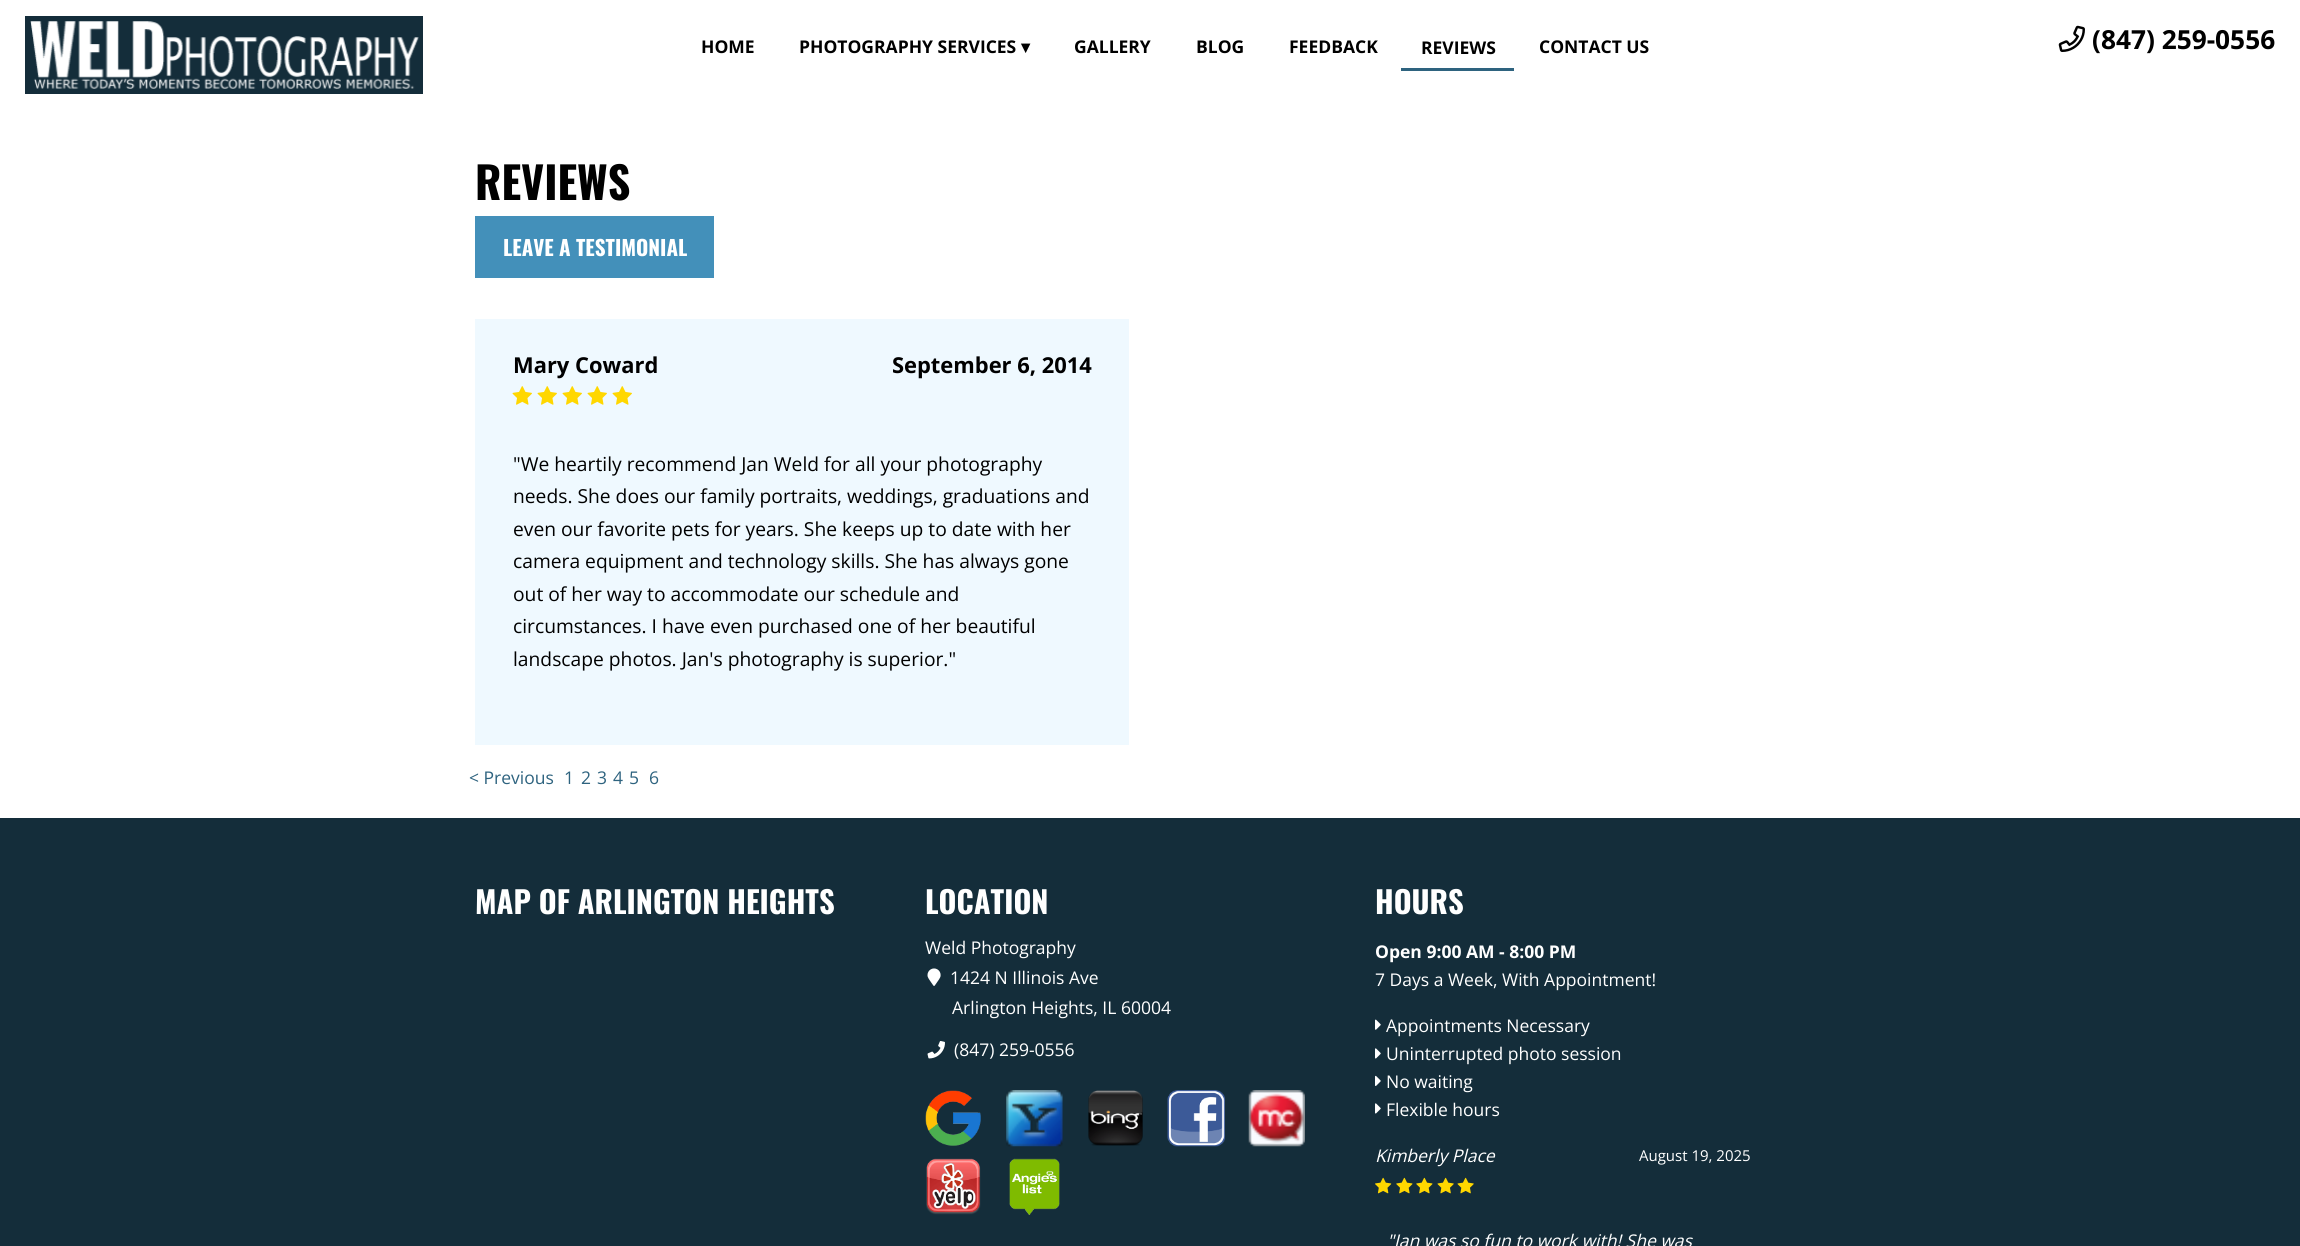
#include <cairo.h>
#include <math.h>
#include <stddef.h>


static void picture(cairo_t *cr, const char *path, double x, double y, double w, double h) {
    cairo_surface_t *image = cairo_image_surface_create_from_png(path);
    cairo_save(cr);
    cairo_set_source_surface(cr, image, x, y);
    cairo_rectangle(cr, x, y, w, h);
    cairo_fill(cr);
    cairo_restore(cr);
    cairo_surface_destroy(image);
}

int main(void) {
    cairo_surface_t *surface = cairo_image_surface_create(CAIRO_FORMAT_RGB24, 2300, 1246);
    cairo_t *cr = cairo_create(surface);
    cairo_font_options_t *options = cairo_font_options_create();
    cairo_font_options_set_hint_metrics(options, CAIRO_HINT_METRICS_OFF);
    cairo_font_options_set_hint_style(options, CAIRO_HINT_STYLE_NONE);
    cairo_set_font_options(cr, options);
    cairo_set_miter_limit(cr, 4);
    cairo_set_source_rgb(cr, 1, 1, 1);
    cairo_paint(cr);
    cairo_set_source_rgb(cr, 0.082, 0.176, 0.227);
    cairo_rectangle(cr, 25, 16, 398, 78);
    cairo_fill(cr);
    picture(cr, "img1.png", 30, 21, 389, 68);
    cairo_select_font_face(cr, "Open Sans", CAIRO_FONT_SLANT_NORMAL, CAIRO_FONT_WEIGHT_BOLD);
    cairo_set_font_size(cr, 17.5);
    cairo_set_source_rgb(cr, 0, 0, 0);
    cairo_move_to(cr, 701, 53);
    cairo_show_text(cr, "HOME");
    cairo_move_to(cr, 799, 53);
    cairo_show_text(cr, "PHOTOGRAPHY SERVICES");
    cairo_select_font_face(cr, "DejaVu Sans", CAIRO_FONT_SLANT_NORMAL, CAIRO_FONT_WEIGHT_BOLD);
    cairo_move_to(cr, 1021, 53);
    cairo_show_text(cr, "▾");
    cairo_select_font_face(cr, "Open Sans", CAIRO_FONT_SLANT_NORMAL, CAIRO_FONT_WEIGHT_BOLD);
    cairo_move_to(cr, 1074, 53);
    cairo_show_text(cr, "GALLERY");
    cairo_move_to(cr, 1196, 53);
    cairo_show_text(cr, "BLOG");
    cairo_move_to(cr, 1289, 53);
    cairo_show_text(cr, "FEEDBACK");
    cairo_move_to(cr, 1421, 54);
    cairo_show_text(cr, "REVIEWS");
    cairo_set_source_rgb(cr, 0.18, 0.388, 0.498);
    cairo_rectangle(cr, 1401, 68, 113, 3);
    cairo_fill(cr);
    cairo_set_source_rgb(cr, 0, 0, 0);
    cairo_move_to(cr, 1539, 53);
    cairo_show_text(cr, "CONTACT US");
    picture(cr, "img2.png", 2058, 25, 27, 27);
    cairo_set_font_size(cr, 26.25);
    cairo_move_to(cr, 2092, 49);
    cairo_show_text(cr, "(847) 259-0556");
    cairo_select_font_face(cr, "Oswald", CAIRO_FONT_SLANT_NORMAL, CAIRO_FONT_WEIGHT_BOLD);
    cairo_set_font_size(cr, 44);
    cairo_move_to(cr, 475, 200);
    cairo_show_text(cr, "REVIEWS");
    cairo_set_source_rgb(cr, 0.263, 0.565, 0.729);
    cairo_rectangle(cr, 475, 216, 239, 62);
    cairo_fill(cr);
    cairo_set_font_size(cr, 21);
    cairo_set_source_rgb(cr, 1, 1, 1);
    cairo_move_to(cr, 503, 256);
    cairo_show_text(cr, "LEAVE A TESTIMONIAL");
    cairo_set_source_rgb(cr, 0.937, 0.976, 1);
    cairo_rectangle(cr, 475, 319, 654, 426);
    cairo_fill(cr);
    cairo_select_font_face(cr, "Open Sans", CAIRO_FONT_SLANT_NORMAL, CAIRO_FONT_WEIGHT_BOLD);
    cairo_set_font_size(cr, 21.9);
    cairo_set_source_rgb(cr, 0, 0, 0);
    cairo_move_to(cr, 513, 373);
    cairo_show_text(cr, "Mary Coward");
    cairo_move_to(cr, 892, 373);
    cairo_show_text(cr, "September 6, 2014");
    picture(cr, "img3.png", 512, 386, 20, 19);
    picture(cr, "img3.png", 537, 386, 20, 19);
    picture(cr, "img3.png", 562, 386, 20, 19);
    picture(cr, "img3.png", 587, 386, 20, 19);
    picture(cr, "img3.png", 612, 386, 20, 19);
    cairo_select_font_face(cr, "Open Sans", CAIRO_FONT_SLANT_NORMAL, CAIRO_FONT_WEIGHT_NORMAL);
    cairo_set_font_size(cr, 19.25);
    cairo_move_to(cr, 513, 471);
    cairo_show_text(cr, "\"We heartily recommend Jan Weld for all your photography");
    cairo_move_to(cr, 513, 503);
    cairo_show_text(cr, "needs. She does our family portraits, weddings, graduations and");
    cairo_move_to(cr, 513, 536);
    cairo_show_text(cr, "even our favorite pets for years. She keeps up to date with her");
    cairo_move_to(cr, 513, 568);
    cairo_show_text(cr, "camera equipment and technology skills. She has always gone");
    cairo_move_to(cr, 513, 601);
    cairo_show_text(cr, "out of her way to accommodate our schedule and");
    cairo_move_to(cr, 513, 633);
    cairo_show_text(cr, "circumstances. I have even purchased one of her beautiful");
    cairo_move_to(cr, 513, 666);
    cairo_show_text(cr, "landscape photos. Jan's photography is superior.\"");
    cairo_set_font_size(cr, 17.5);
    cairo_set_source_rgb(cr, 0.18, 0.388, 0.498);
    cairo_move_to(cr, 469, 784);
    cairo_show_text(cr, "< Previous");
    cairo_move_to(cr, 564, 784);
    cairo_show_text(cr, "1");
    cairo_move_to(cr, 581, 784);
    cairo_show_text(cr, "2");
    cairo_move_to(cr, 597, 784);
    cairo_show_text(cr, "3");
    cairo_move_to(cr, 613, 784);
    cairo_show_text(cr, "4");
    cairo_move_to(cr, 629, 784);
    cairo_show_text(cr, "5");
    cairo_move_to(cr, 649, 784);
    cairo_show_text(cr, "6");
    cairo_set_source_rgb(cr, 0.082, 0.176, 0.227);
    cairo_rectangle(cr, 0, 818, 2300, 428);
    cairo_fill(cr);
    cairo_select_font_face(cr, "Oswald", CAIRO_FONT_SLANT_NORMAL, CAIRO_FONT_WEIGHT_BOLD);
    cairo_set_font_size(cr, 30.6);
    cairo_set_source_rgb(cr, 1, 1, 1);
    cairo_move_to(cr, 475, 914);
    cairo_show_text(cr, "MAP OF ARLINGTON HEIGHTS");
    cairo_move_to(cr, 925, 914);
    cairo_show_text(cr, "LOCATION");
    cairo_select_font_face(cr, "Open Sans", CAIRO_FONT_SLANT_NORMAL, CAIRO_FONT_WEIGHT_NORMAL);
    cairo_set_font_size(cr, 17.5);
    cairo_move_to(cr, 925, 954);
    cairo_show_text(cr, "Weld Photography");
    picture(cr, "img4.png", 927, 968, 14, 18);
    cairo_move_to(cr, 950, 984);
    cairo_show_text(cr, "1424 N Illinois Ave");
    cairo_move_to(cr, 952, 1014);
    cairo_show_text(cr, "Arlington Heights, IL 60004");
    picture(cr, "img5.png", 927, 1041, 18, 18);
    cairo_move_to(cr, 954, 1056);
    cairo_show_text(cr, "(847) 259-0556");
    picture(cr, "img6.png", 925, 1090, 56, 56);
    picture(cr, "img7.png", 1006, 1090, 57, 57);
    picture(cr, "img8.png", 1088, 1090, 55, 56);
    picture(cr, "img9.png", 1167, 1090, 58, 57);
    picture(cr, "img10.png", 1248, 1090, 57, 57);
    picture(cr, "img11.png", 926, 1158, 55, 57);
    picture(cr, "img12.png", 1009, 1158, 51, 57);
    cairo_select_font_face(cr, "Oswald", CAIRO_FONT_SLANT_NORMAL, CAIRO_FONT_WEIGHT_BOLD);
    cairo_set_font_size(cr, 30.6);
    cairo_move_to(cr, 1375, 914);
    cairo_show_text(cr, "HOURS");
    cairo_select_font_face(cr, "Open Sans", CAIRO_FONT_SLANT_NORMAL, CAIRO_FONT_WEIGHT_BOLD);
    cairo_set_font_size(cr, 17.5);
    cairo_move_to(cr, 1375, 958);
    cairo_show_text(cr, "Open 9:00 AM - 8:00 PM");
    cairo_select_font_face(cr, "Open Sans", CAIRO_FONT_SLANT_NORMAL, CAIRO_FONT_WEIGHT_NORMAL);
    cairo_move_to(cr, 1375, 986);
    cairo_show_text(cr, "7 Days a Week, With Appointment!");
    picture(cr, "img13.png", 1375, 1019, 6, 11);
    cairo_move_to(cr, 1386, 1032);
    cairo_show_text(cr, "Appointments Necessary");
    picture(cr, "img14.png", 1375, 1048, 6, 11);
    cairo_move_to(cr, 1386, 1060);
    cairo_show_text(cr, "Uninterrupted photo session");
    picture(cr, "img15.png", 1375, 1075, 6, 11);
    cairo_move_to(cr, 1386, 1088);
    cairo_show_text(cr, "No waiting");
    picture(cr, "img14.png", 1375, 1103, 6, 11);
    cairo_move_to(cr, 1386, 1116);
    cairo_show_text(cr, "Flexible hours");
    cairo_select_font_face(cr, "Open Sans", CAIRO_FONT_SLANT_ITALIC, CAIRO_FONT_WEIGHT_NORMAL);
    cairo_move_to(cr, 1375, 1162);
    cairo_show_text(cr, "Kimberly Place");
    cairo_select_font_face(cr, "Open Sans", CAIRO_FONT_SLANT_NORMAL, CAIRO_FONT_WEIGHT_NORMAL);
    cairo_set_font_size(cr, 15);
    cairo_move_to(cr, 1639, 1161);
    cairo_show_text(cr, "August 19, 2025");
    picture(cr, "img16.png", 1375, 1177, 17, 17);
    picture(cr, "img17.png", 1396, 1177, 17, 17);
    picture(cr, "img17.png", 1416, 1177, 17, 17);
    picture(cr, "img18.png", 1437, 1177, 17, 17);
    picture(cr, "img18.png", 1457, 1177, 17, 17);
    cairo_select_font_face(cr, "Open Sans", CAIRO_FONT_SLANT_ITALIC, CAIRO_FONT_WEIGHT_NORMAL);
    cairo_set_font_size(cr, 17.5);
    cairo_move_to(cr, 1387, 1247);
    cairo_show_text(cr, "\"Jan was so fun to work with! She was");
    cairo_surface_write_to_png(surface, "page.png");
    cairo_font_options_destroy(options);
    cairo_destroy(cr);
    cairo_surface_destroy(surface);
    return 0;
}
